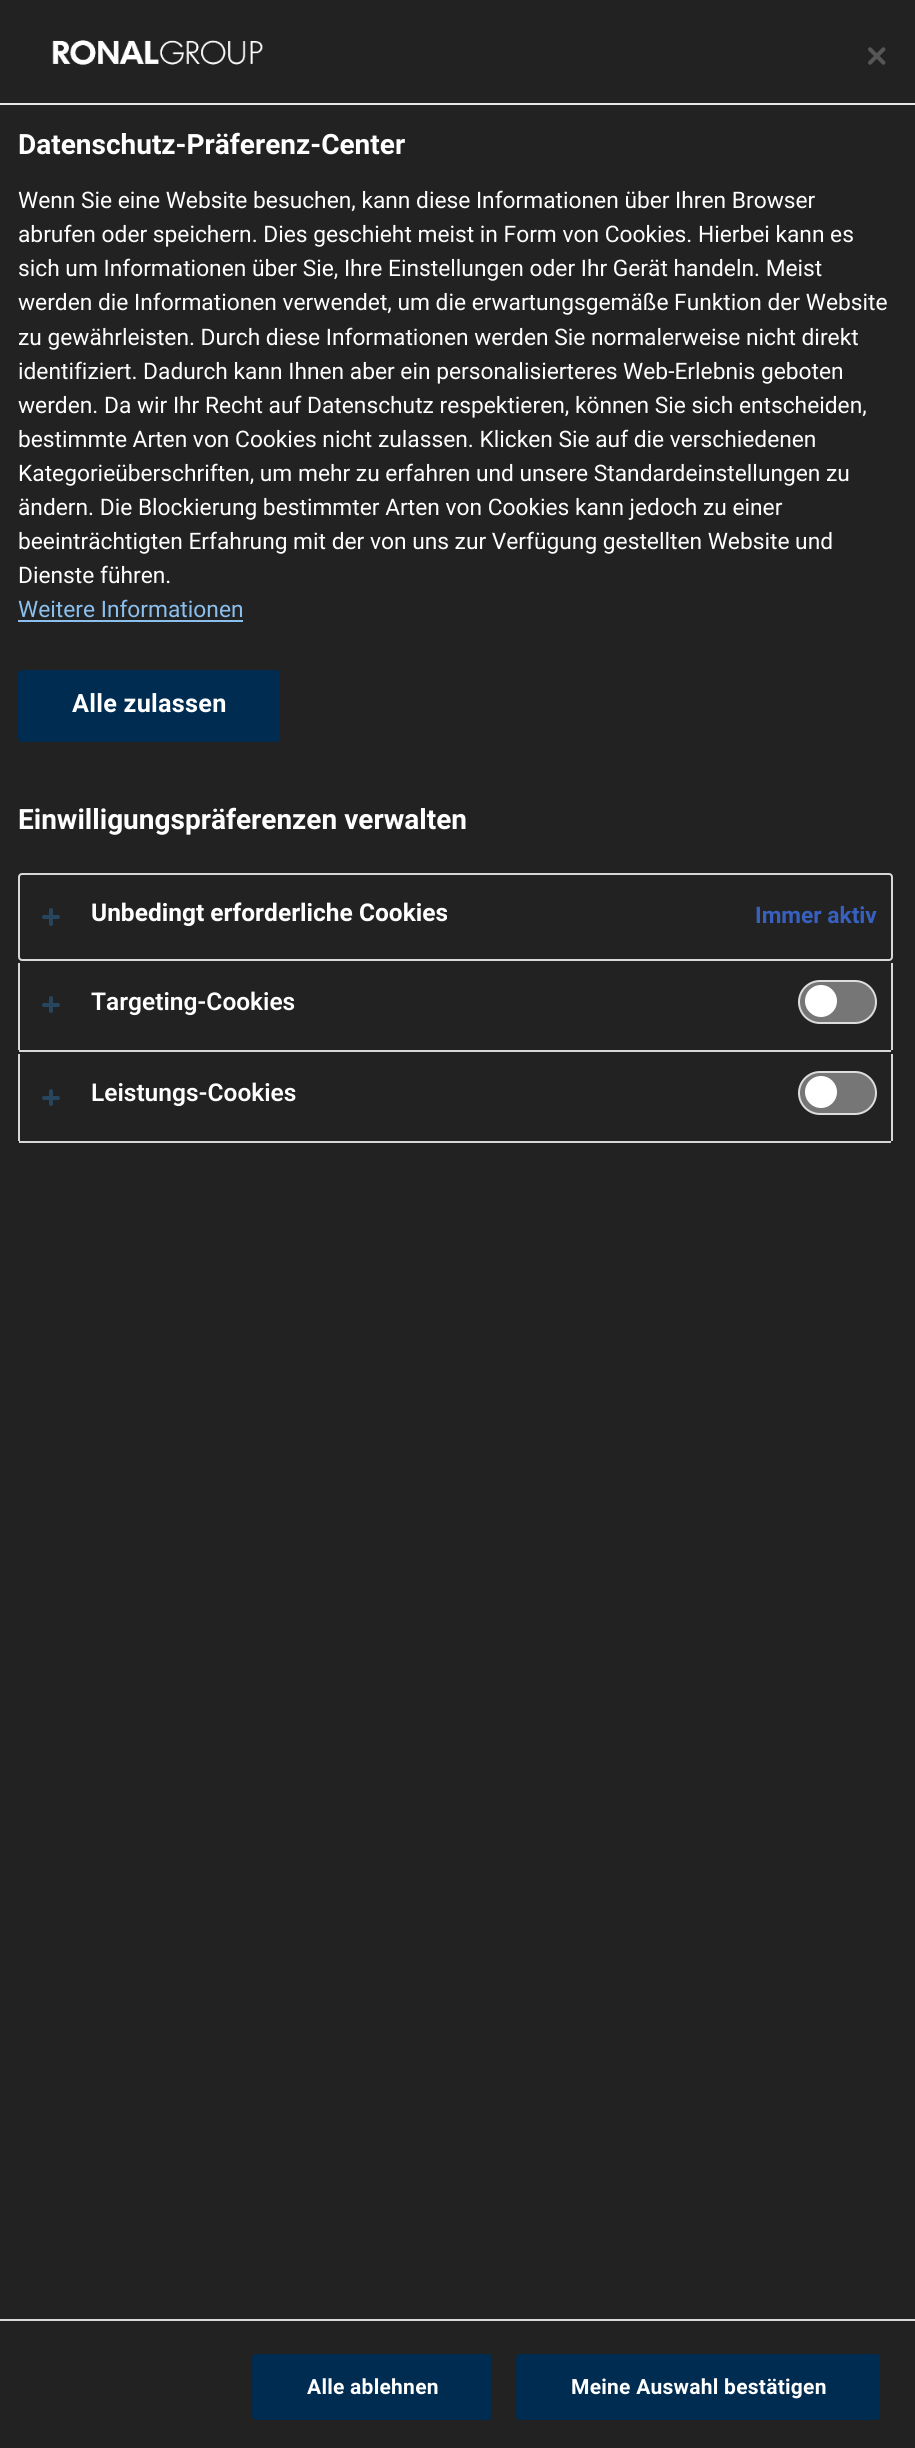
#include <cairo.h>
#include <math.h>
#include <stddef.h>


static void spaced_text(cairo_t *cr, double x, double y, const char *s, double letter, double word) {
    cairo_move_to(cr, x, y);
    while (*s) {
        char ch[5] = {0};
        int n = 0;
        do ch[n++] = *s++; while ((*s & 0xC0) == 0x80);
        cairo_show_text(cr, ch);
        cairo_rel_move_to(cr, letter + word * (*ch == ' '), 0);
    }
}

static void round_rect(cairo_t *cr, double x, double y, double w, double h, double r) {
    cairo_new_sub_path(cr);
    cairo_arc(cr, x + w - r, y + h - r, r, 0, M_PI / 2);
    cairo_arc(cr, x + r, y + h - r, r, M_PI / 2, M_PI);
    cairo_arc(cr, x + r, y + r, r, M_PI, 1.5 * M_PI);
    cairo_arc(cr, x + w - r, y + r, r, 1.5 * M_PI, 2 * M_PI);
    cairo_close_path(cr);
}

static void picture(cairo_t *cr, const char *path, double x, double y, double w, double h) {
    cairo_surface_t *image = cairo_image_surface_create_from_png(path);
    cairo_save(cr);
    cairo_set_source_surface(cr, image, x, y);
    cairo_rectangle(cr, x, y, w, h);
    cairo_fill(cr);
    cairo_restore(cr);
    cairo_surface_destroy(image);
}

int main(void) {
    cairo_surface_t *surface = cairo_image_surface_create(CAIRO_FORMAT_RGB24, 915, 2448);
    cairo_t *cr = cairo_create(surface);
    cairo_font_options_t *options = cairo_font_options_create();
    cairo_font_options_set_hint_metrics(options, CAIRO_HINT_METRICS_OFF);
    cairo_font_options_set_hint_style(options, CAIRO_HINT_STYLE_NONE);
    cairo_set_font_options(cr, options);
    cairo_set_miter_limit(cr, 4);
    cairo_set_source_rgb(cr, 0.133, 0.133, 0.133);
    cairo_paint(cr);
    cairo_set_source_rgb(cr, 0.914, 0.914, 0.914);
    cairo_rectangle(cr, 0, 103, 915, 2);
    cairo_fill(cr);
    picture(cr, "img1.png", 52, 40, 211, 26);
    picture(cr, "img2.png", 868, 47, 18, 18);
    cairo_select_font_face(cr, "Roboto", CAIRO_FONT_SLANT_NORMAL, CAIRO_FONT_WEIGHT_BOLD);
    cairo_set_font_size(cr, 28);
    cairo_set_source_rgb(cr, 1, 1, 1);
    cairo_move_to(cr, 18, 154);
    cairo_show_text(cr, "Datenschutz-Präferenz-Center");
    cairo_select_font_face(cr, "Roboto", CAIRO_FONT_SLANT_NORMAL, CAIRO_FONT_WEIGHT_NORMAL);
    cairo_set_font_size(cr, 22.75);
    cairo_move_to(cr, 18, 208);
    cairo_show_text(cr, "Wenn Sie eine Website besuchen, kann diese Informationen über Ihren Browser");
    cairo_move_to(cr, 18, 242);
    cairo_show_text(cr, "abrufen oder speichern. Dies geschieht meist in Form von Cookies. Hierbei kann es");
    cairo_move_to(cr, 18, 276);
    cairo_show_text(cr, "sich um Informationen über Sie, Ihre Einstellungen oder Ihr Gerät handeln. Meist");
    cairo_move_to(cr, 18, 310);
    cairo_show_text(cr, "werden die Informationen verwendet, um die erwartungsgemäße Funktion der Website");
    cairo_move_to(cr, 18, 345);
    cairo_show_text(cr, "zu gewährleisten. Durch diese Informationen werden Sie normalerweise nicht direkt");
    cairo_move_to(cr, 18, 379);
    cairo_show_text(cr, "identifiziert. Dadurch kann Ihnen aber ein personalisierteres Web-Erlebnis geboten");
    cairo_move_to(cr, 18, 413);
    cairo_show_text(cr, "werden. Da wir Ihr Recht auf Datenschutz respektieren, können Sie sich entscheiden,");
    cairo_move_to(cr, 18, 447);
    cairo_show_text(cr, "bestimmte Arten von Cookies nicht zulassen. Klicken Sie auf die verschiedenen");
    cairo_move_to(cr, 18, 481);
    cairo_show_text(cr, "Kategorieüberschriften, um mehr zu erfahren und unsere Standardeinstellungen zu");
    cairo_move_to(cr, 18, 515);
    cairo_show_text(cr, "ändern. Die Blockierung bestimmter Arten von Cookies kann jedoch zu einer");
    cairo_move_to(cr, 18, 549);
    cairo_show_text(cr, "beeinträchtigten Erfahrung mit der von uns zur Verfügung gestellten Website und");
    cairo_move_to(cr, 18, 583);
    cairo_show_text(cr, "Dienste führen.");
    cairo_set_source_rgb(cr, 0.545, 0.753, 0.933);
    cairo_move_to(cr, 18, 617);
    cairo_show_text(cr, "Weitere Informationen");
    cairo_rectangle(cr, 18, 620, 225, 2);
    cairo_fill(cr);
    cairo_set_source_rgb(cr, 0, 0.173, 0.322);
    round_rect(cr, 19, 671, 260, 70, 3);
    cairo_fill_preserve(cr);
    cairo_stroke(cr);
    cairo_select_font_face(cr, "Roboto", CAIRO_FONT_SLANT_NORMAL, CAIRO_FONT_WEIGHT_BOLD);
    cairo_set_font_size(cr, 25.25);
    cairo_set_source_rgb(cr, 1, 1, 1);
    spaced_text(cr, 72, 712, "Alle zulassen", 0.25, 0);
    cairo_set_font_size(cr, 28);
    cairo_move_to(cr, 18, 829);
    cairo_show_text(cr, "Einwilligungspräferenzen verwalten");
    round_rect(cr, 19, 874, 873, 86, 3);
    cairo_set_source_rgb(cr, 0.847, 0.847, 0.847);
    cairo_stroke(cr);
    cairo_set_source_rgb(cr, 0.153, 0.271, 0.361);
    round_rect(cr, 49, 908, 4, 18, 2);
    cairo_fill(cr);
    round_rect(cr, 42, 915, 18, 4, 2);
    cairo_fill(cr);
    cairo_set_font_size(cr, 24.5);
    cairo_set_source_rgb(cr, 1, 1, 1);
    cairo_move_to(cr, 91, 921);
    cairo_show_text(cr, "Unbedingt erforderliche Cookies");
    cairo_set_font_size(cr, 22.75);
    cairo_set_source_rgb(cr, 0.22, 0.376, 0.745);
    cairo_move_to(cr, 755, 923);
    cairo_show_text(cr, "Immer aktiv");
    cairo_set_source_rgb(cr, 0.847, 0.847, 0.847);
    cairo_rectangle(cr, 891, 963, 2, 87);
    cairo_fill(cr);
    cairo_rectangle(cr, 19, 1050, 872, 2);
    cairo_fill(cr);
    cairo_rectangle(cr, 18, 963, 2, 87);
    cairo_fill(cr);
    cairo_set_source_rgb(cr, 0.153, 0.271, 0.361);
    round_rect(cr, 49, 996, 4, 17, 2);
    cairo_fill(cr);
    round_rect(cr, 42, 1003, 18, 4, 2);
    cairo_fill(cr);
    cairo_select_font_face(cr, "Roboto SemiBold", CAIRO_FONT_SLANT_NORMAL, CAIRO_FONT_WEIGHT_NORMAL);
    cairo_set_font_size(cr, 24.5);
    cairo_set_source_rgb(cr, 1, 1, 1);
    cairo_move_to(cr, 91, 1010);
    cairo_show_text(cr, "Targeting-Cookies");
    cairo_set_source_rgb(cr, 0.463, 0.463, 0.463);
    round_rect(cr, 799, 981, 77, 42, 21);
    cairo_fill_preserve(cr);
    cairo_set_source_rgb(cr, 0.867, 0.867, 0.867);
    cairo_stroke(cr);
    cairo_set_source_rgb(cr, 1, 1, 1);
    cairo_arc(cr, 821, 1001, 16, 0, 2 * M_PI);
    cairo_fill(cr);
    cairo_set_source_rgb(cr, 0.847, 0.847, 0.847);
    cairo_rectangle(cr, 891, 1054, 2, 87);
    cairo_fill(cr);
    cairo_rectangle(cr, 19, 1141, 872, 2);
    cairo_fill(cr);
    cairo_rectangle(cr, 18, 1054, 2, 87);
    cairo_fill(cr);
    cairo_set_source_rgb(cr, 0.153, 0.271, 0.361);
    round_rect(cr, 49, 1089, 4, 17, 2);
    cairo_fill(cr);
    round_rect(cr, 42, 1096, 18, 4, 2);
    cairo_fill(cr);
    cairo_set_source_rgb(cr, 1, 1, 1);
    cairo_move_to(cr, 91, 1101);
    cairo_show_text(cr, "Leistungs-Cookies");
    cairo_set_source_rgb(cr, 0.463, 0.463, 0.463);
    round_rect(cr, 799, 1072, 77, 42, 21);
    cairo_fill_preserve(cr);
    cairo_set_source_rgb(cr, 0.867, 0.867, 0.867);
    cairo_stroke(cr);
    cairo_set_source_rgb(cr, 1, 1, 1);
    cairo_arc(cr, 821, 1092, 16, 0, 2 * M_PI);
    cairo_fill(cr);
    cairo_set_source_rgb(cr, 0.847, 0.847, 0.847);
    cairo_rectangle(cr, 0, 2319, 915, 2);
    cairo_fill(cr);
    cairo_set_source_rgb(cr, 0, 0.173, 0.322);
    round_rect(cr, 253, 2355, 238, 64, 3);
    cairo_fill_preserve(cr);
    cairo_stroke(cr);
    cairo_select_font_face(cr, "Roboto", CAIRO_FONT_SLANT_NORMAL, CAIRO_FONT_WEIGHT_BOLD);
    cairo_set_font_size(cr, 21);
    cairo_set_source_rgb(cr, 1, 1, 1);
    spaced_text(cr, 307, 2394, "Alle ablehnen", 0.25, 0);
    cairo_set_source_rgb(cr, 0, 0.173, 0.322);
    round_rect(cr, 517, 2355, 362, 64, 3);
    cairo_fill_preserve(cr);
    cairo_stroke(cr);
    cairo_set_source_rgb(cr, 1, 1, 1);
    spaced_text(cr, 571, 2394, "Meine Auswahl bestätigen", 0.25, 0);
    cairo_surface_write_to_png(surface, "page.png");
    cairo_font_options_destroy(options);
    cairo_destroy(cr);
    cairo_surface_destroy(surface);
    return 0;
}
